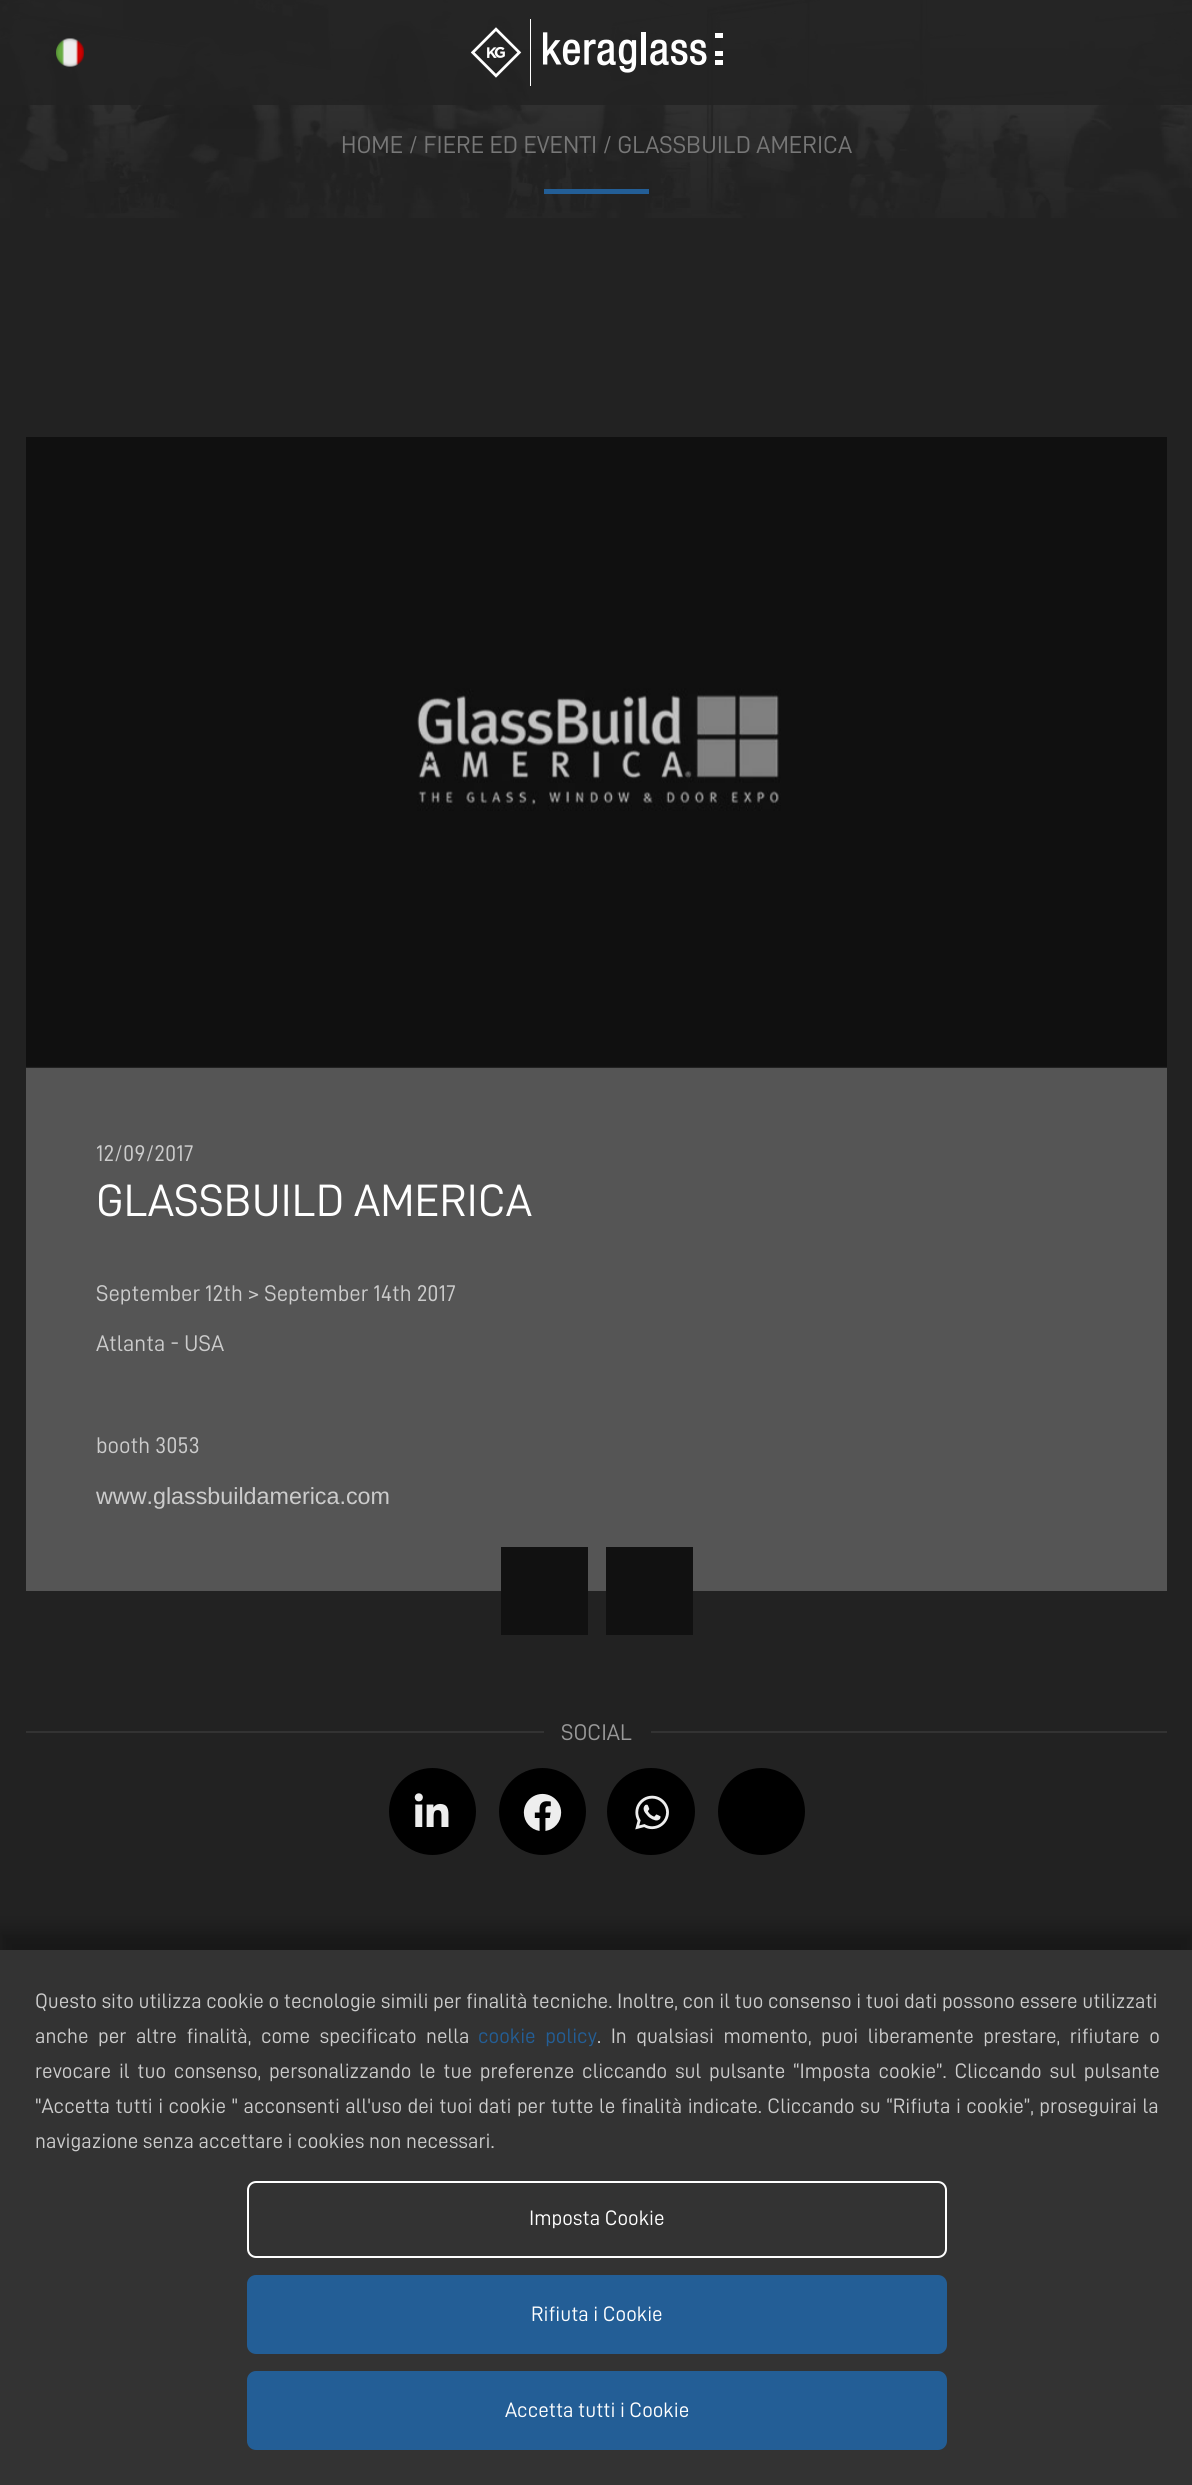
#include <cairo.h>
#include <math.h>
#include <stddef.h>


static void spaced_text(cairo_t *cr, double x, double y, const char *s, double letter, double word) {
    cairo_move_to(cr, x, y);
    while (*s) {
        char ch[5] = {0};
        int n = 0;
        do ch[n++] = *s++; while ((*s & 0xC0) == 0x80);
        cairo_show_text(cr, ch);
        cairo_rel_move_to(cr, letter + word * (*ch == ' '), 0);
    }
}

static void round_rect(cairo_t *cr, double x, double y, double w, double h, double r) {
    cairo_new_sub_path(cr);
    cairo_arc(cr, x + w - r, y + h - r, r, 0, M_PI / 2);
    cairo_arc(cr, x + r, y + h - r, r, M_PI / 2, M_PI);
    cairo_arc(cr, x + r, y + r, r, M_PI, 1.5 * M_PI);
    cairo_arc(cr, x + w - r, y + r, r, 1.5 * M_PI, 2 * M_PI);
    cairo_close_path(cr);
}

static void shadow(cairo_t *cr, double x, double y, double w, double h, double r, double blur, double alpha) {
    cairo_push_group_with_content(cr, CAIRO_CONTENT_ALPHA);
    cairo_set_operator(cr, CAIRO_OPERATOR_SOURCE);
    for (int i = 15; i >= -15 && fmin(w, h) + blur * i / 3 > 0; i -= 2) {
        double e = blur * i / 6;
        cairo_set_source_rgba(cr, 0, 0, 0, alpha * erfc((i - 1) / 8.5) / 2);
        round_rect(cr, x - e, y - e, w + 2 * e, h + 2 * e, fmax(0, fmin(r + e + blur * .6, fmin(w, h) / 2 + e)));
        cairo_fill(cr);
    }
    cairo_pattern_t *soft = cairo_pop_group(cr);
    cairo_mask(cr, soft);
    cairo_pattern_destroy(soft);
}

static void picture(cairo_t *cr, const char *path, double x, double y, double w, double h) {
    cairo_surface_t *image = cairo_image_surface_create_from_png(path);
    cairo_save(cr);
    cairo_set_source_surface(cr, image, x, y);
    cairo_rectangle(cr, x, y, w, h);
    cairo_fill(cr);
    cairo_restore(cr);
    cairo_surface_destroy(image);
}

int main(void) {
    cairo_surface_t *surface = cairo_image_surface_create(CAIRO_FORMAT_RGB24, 1192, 2485);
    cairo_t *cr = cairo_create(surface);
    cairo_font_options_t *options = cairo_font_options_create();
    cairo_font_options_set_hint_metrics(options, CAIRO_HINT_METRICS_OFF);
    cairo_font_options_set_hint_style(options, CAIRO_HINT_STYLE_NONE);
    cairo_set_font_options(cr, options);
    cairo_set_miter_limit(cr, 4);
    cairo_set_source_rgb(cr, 0.133, 0.133, 0.133);
    cairo_paint(cr);
    picture(cr, "img3.png", 0, 0, 1192, 218);
    cairo_set_source_rgba(cr, 0.137, 0.137, 0.137, 0.9);
    cairo_rectangle(cr, 0, 0, 1192, 105);
    cairo_fill(cr);
    picture(cr, "img1.png", 56, 38, 28, 29);
    picture(cr, "img2.png", 471, 19, 252, 67);
    cairo_select_font_face(cr, "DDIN", CAIRO_FONT_SLANT_NORMAL, CAIRO_FONT_WEIGHT_NORMAL);
    cairo_set_font_size(cr, 24.5);
    cairo_set_source_rgb(cr, 0.467, 0.467, 0.467);
    cairo_move_to(cr, 341, 153);
    cairo_show_text(cr, "HOME / FIERE ED EVENTI / GLASSBUILD AMERICA");
    cairo_set_source_rgb(cr, 0.137, 0.369, 0.588);
    cairo_rectangle(cr, 544, 189, 105, 5);
    cairo_fill(cr);
    picture(cr, "img4.png", 26, 437, 1141, 630);
    cairo_set_source_rgb(cr, 0.333, 0.333, 0.333);
    cairo_rectangle(cr, 26, 1068, 1141, 523);
    cairo_fill(cr);
    cairo_set_font_size(cr, 22.75);
    cairo_set_source_rgb(cr, 0.8, 0.8, 0.8);
    cairo_move_to(cr, 96, 1161);
    cairo_show_text(cr, "12/09/2017");
    cairo_set_font_size(cr, 45.5);
    cairo_set_source_rgb(cr, 1, 1, 1);
    cairo_move_to(cr, 96, 1216);
    cairo_show_text(cr, "GLASSBUILD AMERICA");
    cairo_set_font_size(cr, 22.75);
    cairo_set_source_rgb(cr, 0.8, 0.8, 0.8);
    cairo_move_to(cr, 96, 1301);
    cairo_show_text(cr, "September 12th > September 14th 2017");
    cairo_move_to(cr, 96, 1351);
    cairo_show_text(cr, "Atlanta - USA");
    cairo_move_to(cr, 96, 1453);
    cairo_show_text(cr, "booth 3053");
    cairo_select_font_face(cr, "Liberation Sans", CAIRO_FONT_SLANT_NORMAL, CAIRO_FONT_WEIGHT_NORMAL);
    cairo_set_font_size(cr, 23.3);
    cairo_move_to(cr, 96, 1504);
    cairo_show_text(cr, "www.glassbuildamerica.com");
    cairo_set_source_rgb(cr, 0.067, 0.067, 0.067);
    cairo_rectangle(cr, 501, 1547, 87, 88);
    cairo_fill(cr);
    cairo_rectangle(cr, 606, 1547, 87, 88);
    cairo_fill(cr);
    cairo_set_source_rgb(cr, 0.2, 0.2, 0.2);
    cairo_rectangle(cr, 26, 1731, 1141, 2);
    cairo_fill(cr);
    cairo_set_source_rgb(cr, 0.133, 0.133, 0.133);
    cairo_rectangle(cr, 544, 1731, 107, 2);
    cairo_fill(cr);
    cairo_select_font_face(cr, "DDIN", CAIRO_FONT_SLANT_NORMAL, CAIRO_FONT_WEIGHT_NORMAL);
    cairo_set_font_size(cr, 22.75);
    cairo_set_source_rgb(cr, 0.6, 0.6, 0.6);
    cairo_move_to(cr, 561, 1740);
    cairo_show_text(cr, "SOCIAL");
    cairo_set_source_rgb(cr, 0, 0, 0);
    cairo_new_path(cr);
    cairo_arc(cr, 432.5, 1811.5, 43.5, 0, 2 * M_PI);
    cairo_fill(cr);
    picture(cr, "img5.png", 414, 1793, 35, 34);
    cairo_arc(cr, 542.5, 1811.5, 43.5, 0, 2 * M_PI);
    cairo_fill(cr);
    picture(cr, "img6.png", 523, 1793, 39, 38);
    round_rect(cr, 607, 1768, 88, 87, 43.5);
    cairo_fill(cr);
    picture(cr, "img7.png", 635, 1795, 34, 35);
    cairo_arc(cr, 761.5, 1811.5, 43.5, 0, 2 * M_PI);
    cairo_fill(cr);
    cairo_set_source_rgb(cr, 0, 0, 0);
    shadow(cr, -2, 1930, 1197, 539, 0, 9, 0.3);
    cairo_set_source_rgb(cr, 0.2, 0.2, 0.2);
    cairo_rectangle(cr, 0, 1950, 1192, 535);
    cairo_fill(cr);
    cairo_set_font_size(cr, 21);
    cairo_set_source_rgb(cr, 0.8, 0.8, 0.8);
    spaced_text(cr, 35, 2008, "Questo sito utilizza cookie o tecnologie simili per finalità tecniche. Inoltre, con il tuo consenso i tuoi dati possono essere utilizzati", 0, 0.1);
    spaced_text(cr, 35, 2043, "anche per altre finalità, come specificato nella", 0, 5);
    cairo_set_source_rgb(cr, 0.137, 0.369, 0.588);
    spaced_text(cr, 478, 2043, "cookie policy", 0, 5);
    cairo_set_source_rgb(cr, 0.8, 0.8, 0.8);
    spaced_text(cr, 597, 2043, ". In qualsiasi momento, puoi liberamente prestare, rifiutare o", 0, 5);
    spaced_text(cr, 35, 2078, "revocare il tuo consenso, personalizzando le tue preferenze cliccando sul pulsante “Imposta cookie”. Cliccando sul pulsante", 0, 3.25);
    spaced_text(cr, 35, 2113, "\"Accetta tutti i cookie \" acconsenti all'uso dei tuoi dati per tutte le finalità indicate. Cliccando su “Rifiuta i cookie”, proseguirai la", 0, 0.9);
    cairo_move_to(cr, 35, 2148);
    cairo_show_text(cr, "navigazione senza accettare i cookies non necessari.");
    round_rect(cr, 248, 2182, 698, 75, 8);
    cairo_set_source_rgb(cr, 1, 1, 1);
    cairo_stroke(cr);
    cairo_move_to(cr, 529, 2225);
    cairo_show_text(cr, "Imposta Cookie");
    cairo_set_source_rgb(cr, 0.137, 0.369, 0.588);
    round_rect(cr, 248, 2276, 698, 77, 8);
    cairo_fill_preserve(cr);
    cairo_stroke(cr);
    cairo_set_source_rgb(cr, 1, 1, 1);
    cairo_move_to(cr, 531, 2321);
    cairo_show_text(cr, "Rifiuta i Cookie");
    cairo_set_source_rgb(cr, 0.137, 0.369, 0.588);
    round_rect(cr, 248, 2372, 698, 77, 8);
    cairo_fill_preserve(cr);
    cairo_stroke(cr);
    cairo_set_source_rgb(cr, 1, 1, 1);
    cairo_move_to(cr, 505, 2417);
    cairo_show_text(cr, "Accetta tutti i Cookie");
    cairo_surface_write_to_png(surface, "page.png");
    cairo_font_options_destroy(options);
    cairo_destroy(cr);
    cairo_surface_destroy(surface);
    return 0;
}
